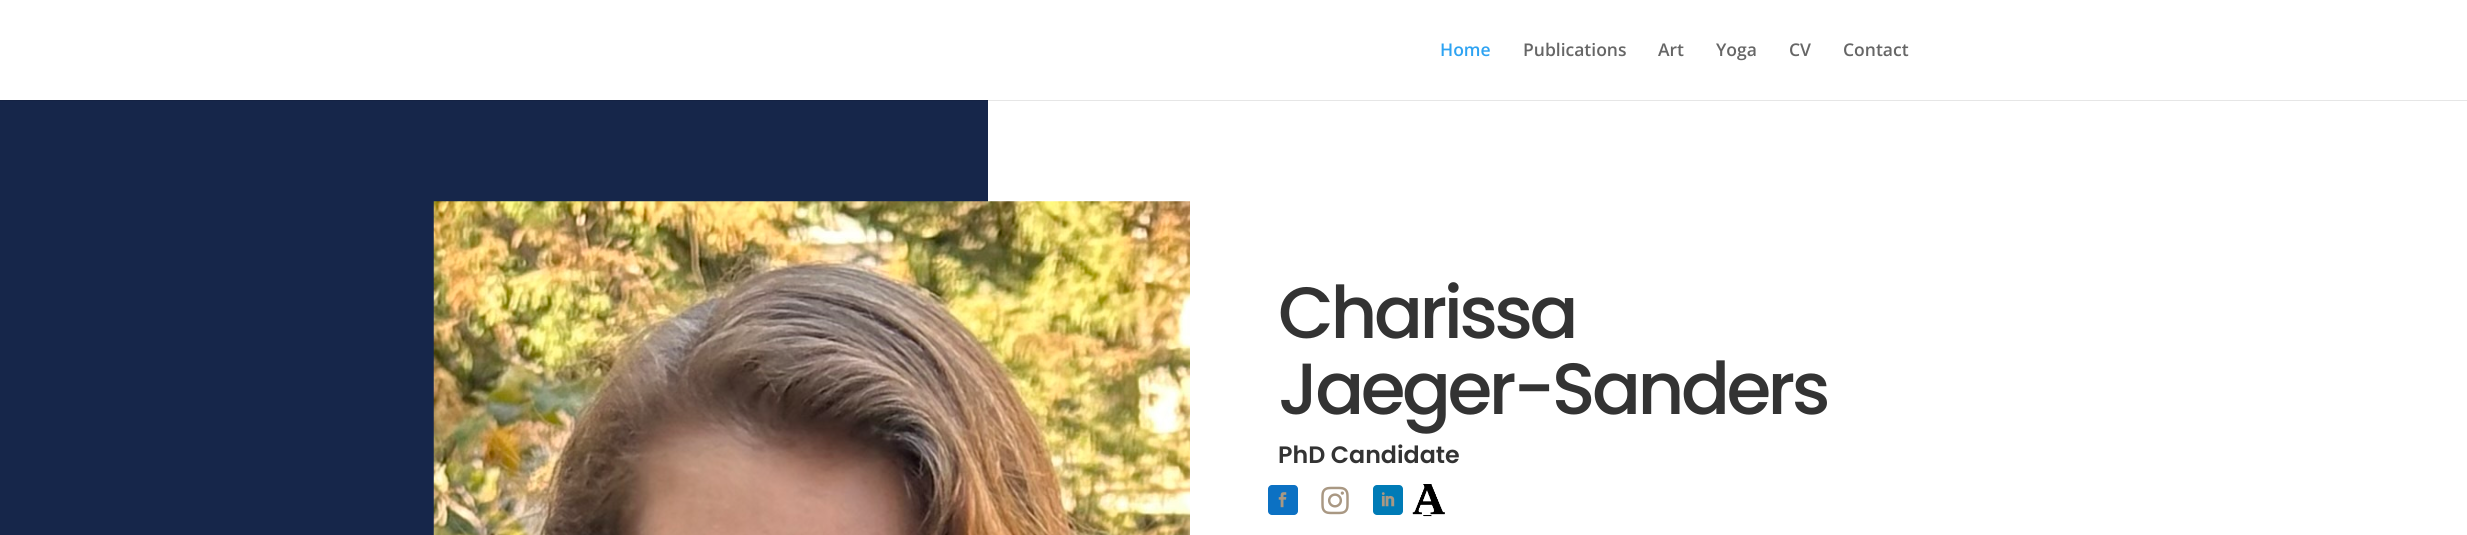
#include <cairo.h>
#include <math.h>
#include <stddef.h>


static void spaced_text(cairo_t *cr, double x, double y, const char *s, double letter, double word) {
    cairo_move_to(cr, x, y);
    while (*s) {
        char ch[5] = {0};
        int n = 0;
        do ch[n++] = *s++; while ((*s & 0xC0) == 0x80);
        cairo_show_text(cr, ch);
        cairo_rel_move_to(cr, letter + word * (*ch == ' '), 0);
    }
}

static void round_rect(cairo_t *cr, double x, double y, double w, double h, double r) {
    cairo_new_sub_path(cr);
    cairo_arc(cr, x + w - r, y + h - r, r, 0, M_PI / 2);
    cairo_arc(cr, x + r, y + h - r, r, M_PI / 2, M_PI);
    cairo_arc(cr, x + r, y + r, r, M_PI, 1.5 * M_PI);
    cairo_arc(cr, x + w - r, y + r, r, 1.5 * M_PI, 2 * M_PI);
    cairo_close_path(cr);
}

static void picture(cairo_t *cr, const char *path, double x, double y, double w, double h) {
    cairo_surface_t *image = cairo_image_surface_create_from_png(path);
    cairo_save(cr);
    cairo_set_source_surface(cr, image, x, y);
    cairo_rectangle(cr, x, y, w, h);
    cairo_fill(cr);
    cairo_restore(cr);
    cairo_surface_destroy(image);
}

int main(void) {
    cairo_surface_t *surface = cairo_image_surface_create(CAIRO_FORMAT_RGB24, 2467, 535);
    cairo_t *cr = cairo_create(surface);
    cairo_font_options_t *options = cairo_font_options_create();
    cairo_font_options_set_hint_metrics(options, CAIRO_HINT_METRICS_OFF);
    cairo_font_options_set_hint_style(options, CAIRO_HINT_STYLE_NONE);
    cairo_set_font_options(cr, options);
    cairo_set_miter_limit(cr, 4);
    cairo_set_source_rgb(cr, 1, 1, 1);
    cairo_paint(cr);
    cairo_set_source_rgb(cr, 0.086, 0.149, 0.29);
    cairo_rectangle(cr, 0, 100, 988, 435);
    cairo_fill(cr);
    cairo_set_source_rgba(cr, 0, 0, 0, 0.1);
    cairo_new_path(cr);
    cairo_move_to(cr, 0, 100);
    cairo_line_to(cr, 0, 101);
    cairo_line_to(cr, 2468, 101);
    cairo_line_to(cr, 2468, 1);
    cairo_line_to(cr, 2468, 100);
    cairo_close_path(cr);
    cairo_fill(cr);
    cairo_select_font_face(cr, "Open Sans SemiBold", CAIRO_FONT_SLANT_NORMAL, CAIRO_FONT_WEIGHT_NORMAL);
    cairo_set_font_size(cr, 17.5);
    cairo_set_source_rgb(cr, 0.18, 0.639, 0.949);
    cairo_move_to(cr, 1440, 56);
    cairo_show_text(cr, "Home");
    cairo_set_source_rgb(cr, 0.4, 0.4, 0.4);
    cairo_move_to(cr, 1523, 56);
    cairo_show_text(cr, "Publications");
    cairo_move_to(cr, 1658, 56);
    cairo_show_text(cr, "Art");
    cairo_move_to(cr, 1716, 56);
    cairo_show_text(cr, "Yoga");
    cairo_move_to(cr, 1789, 56);
    cairo_show_text(cr, "CV");
    cairo_move_to(cr, 1843, 56);
    cairo_show_text(cr, "Contact");
    picture(cr, "img1.png", 433, 201, 757, 334);
    cairo_select_font_face(cr, "Poppins Medium", CAIRO_FONT_SLANT_NORMAL, CAIRO_FONT_WEIGHT_NORMAL);
    cairo_set_font_size(cr, 72.5);
    cairo_set_source_rgb(cr, 0.2, 0.2, 0.2);
    spaced_text(cr, 1278, 338, "Charissa", -3.6, 0);
    spaced_text(cr, 1278, 414, "Jaeger-Sanders", -3.6, 0);
    cairo_select_font_face(cr, "Poppins SemiBold", CAIRO_FONT_SLANT_NORMAL, CAIRO_FONT_WEIGHT_NORMAL);
    cairo_set_font_size(cr, 23.75);
    cairo_move_to(cr, 1278, 463);
    cairo_show_text(cr, "PhD Candidate");
    cairo_set_source_rgb(cr, 0.047, 0.443, 0.765);
    round_rect(cr, 1268, 485, 30, 30, 4);
    cairo_fill(cr);
    picture(cr, "img2.png", 1278, 492, 9, 16);
    picture(cr, "img3.png", 1321, 486, 28, 29);
    cairo_set_source_rgb(cr, 0, 0.482, 0.714);
    round_rect(cr, 1373, 485, 30, 30, 4);
    cairo_fill(cr);
    picture(cr, "img4.png", 1381, 492, 14, 15);
    picture(cr, "img5.png", 1412, 484, 33, 33);
    cairo_surface_write_to_png(surface, "page.png");
    cairo_font_options_destroy(options);
    cairo_destroy(cr);
    cairo_surface_destroy(surface);
    return 0;
}
